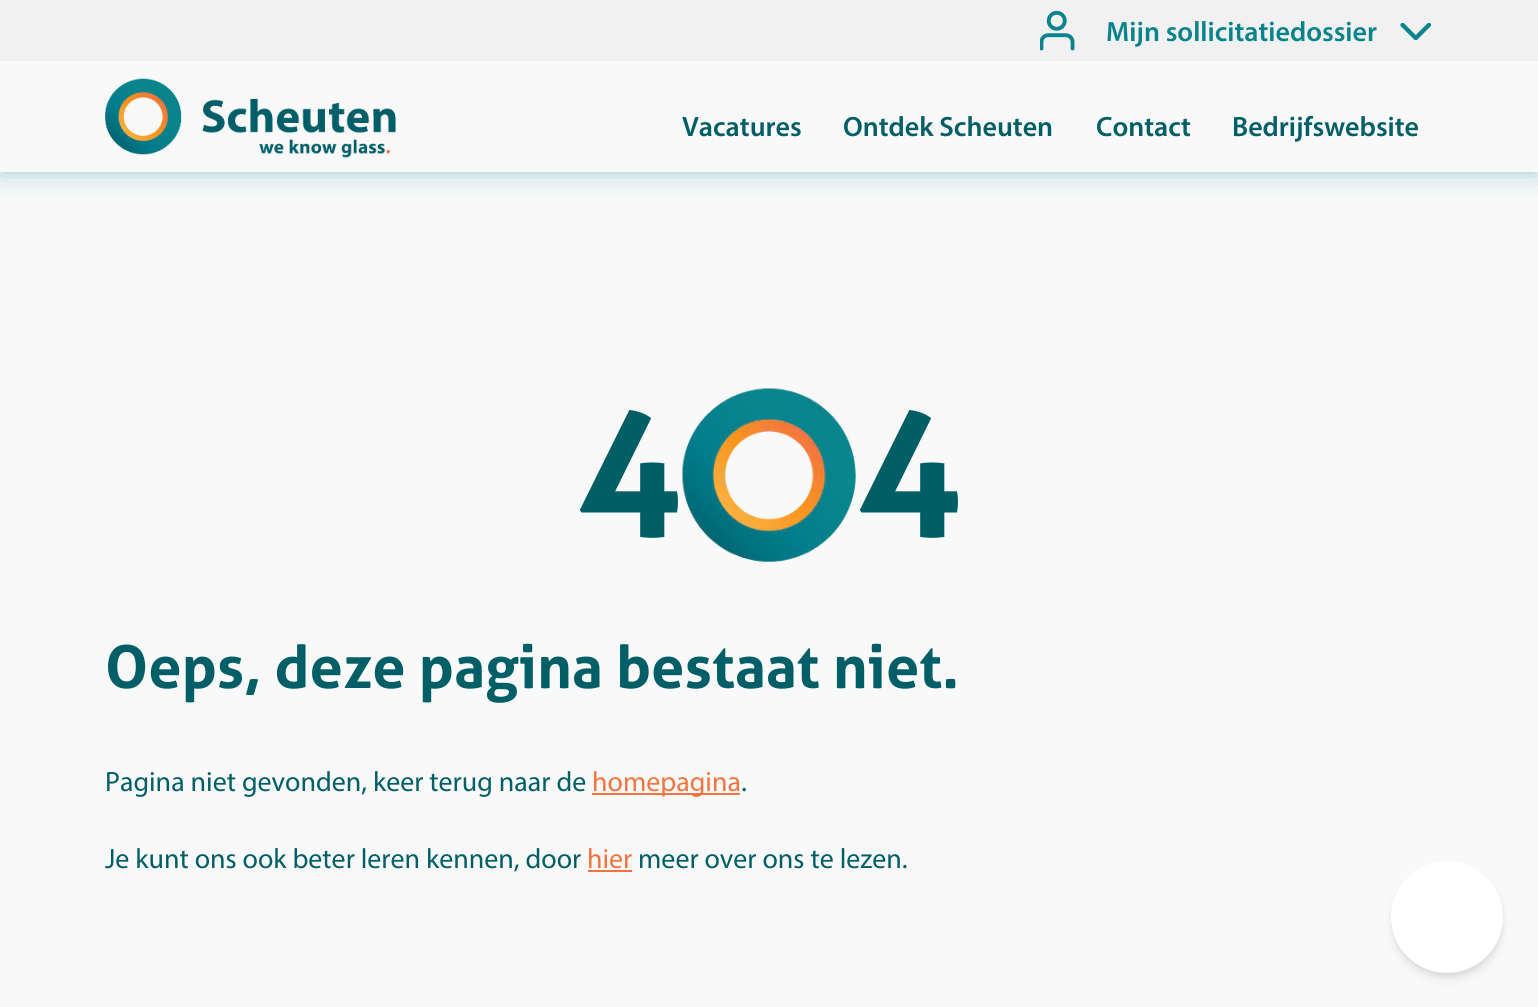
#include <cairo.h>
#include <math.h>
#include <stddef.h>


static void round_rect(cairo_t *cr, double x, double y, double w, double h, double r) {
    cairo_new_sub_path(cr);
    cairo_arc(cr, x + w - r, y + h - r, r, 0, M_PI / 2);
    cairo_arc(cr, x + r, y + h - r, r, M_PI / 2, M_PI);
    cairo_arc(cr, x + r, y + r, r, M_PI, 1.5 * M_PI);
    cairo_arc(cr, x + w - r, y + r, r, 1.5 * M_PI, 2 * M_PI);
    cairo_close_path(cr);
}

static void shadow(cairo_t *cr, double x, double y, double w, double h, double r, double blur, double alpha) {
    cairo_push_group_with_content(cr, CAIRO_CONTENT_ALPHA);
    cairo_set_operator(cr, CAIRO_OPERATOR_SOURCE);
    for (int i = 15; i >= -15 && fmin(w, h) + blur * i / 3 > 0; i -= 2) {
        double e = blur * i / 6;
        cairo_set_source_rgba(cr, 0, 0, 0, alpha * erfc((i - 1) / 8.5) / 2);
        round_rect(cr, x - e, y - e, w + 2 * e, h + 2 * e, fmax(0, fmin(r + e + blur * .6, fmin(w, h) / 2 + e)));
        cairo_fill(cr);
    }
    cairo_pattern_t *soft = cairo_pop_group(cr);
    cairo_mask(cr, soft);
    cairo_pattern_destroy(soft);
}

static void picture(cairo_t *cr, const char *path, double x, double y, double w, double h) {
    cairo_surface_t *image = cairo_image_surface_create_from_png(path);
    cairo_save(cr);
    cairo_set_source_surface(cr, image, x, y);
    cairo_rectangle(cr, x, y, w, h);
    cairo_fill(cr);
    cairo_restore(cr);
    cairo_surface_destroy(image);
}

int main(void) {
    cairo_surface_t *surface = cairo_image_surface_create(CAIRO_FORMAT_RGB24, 1538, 1007);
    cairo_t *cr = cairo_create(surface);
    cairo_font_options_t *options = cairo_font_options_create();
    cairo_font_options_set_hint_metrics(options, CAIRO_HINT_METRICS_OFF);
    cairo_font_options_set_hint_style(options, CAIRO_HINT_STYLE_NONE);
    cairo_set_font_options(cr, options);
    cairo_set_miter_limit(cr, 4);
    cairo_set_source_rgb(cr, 0.976, 0.976, 0.976);
    cairo_paint(cr);
    cairo_set_source_rgb(cr, 0.035, 0.514, 0.549);
    shadow(cr, 0, 0, 1538, 172, 0, 13, 0.4);
    cairo_set_source_rgb(cr, 0.976, 0.976, 0.976);
    cairo_rectangle(cr, 0, 61, 1538, 111);
    cairo_fill(cr);
    cairo_set_source_rgb(cr, 0.945, 0.945, 0.945);
    cairo_rectangle(cr, 0, 0, 1538, 61);
    cairo_fill(cr);
    picture(cr, "img1.png", 1040, 10, 35, 41);
    cairo_select_font_face(cr, "Myriad SemiBold", CAIRO_FONT_SLANT_NORMAL, CAIRO_FONT_WEIGHT_NORMAL);
    cairo_set_font_size(cr, 28);
    cairo_set_source_rgb(cr, 0.035, 0.514, 0.549);
    cairo_move_to(cr, 1106, 41);
    cairo_show_text(cr, "Mijn sollicitatiedossier");
    picture(cr, "img2.png", 1400, 23, 32, 17);
    picture(cr, "img3.png", 105, 78, 291, 80);
    cairo_set_source_rgb(cr, 0, 0.369, 0.404);
    cairo_move_to(cr, 682, 136);
    cairo_show_text(cr, "Vacatures");
    cairo_move_to(cr, 843, 136);
    cairo_show_text(cr, "Ontdek Scheuten");
    cairo_move_to(cr, 1096, 136);
    cairo_show_text(cr, "Contact");
    cairo_move_to(cr, 1232, 136);
    cairo_show_text(cr, "Bedrijfswebsite");
    cairo_select_font_face(cr, "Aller", CAIRO_FONT_SLANT_NORMAL, CAIRO_FONT_WEIGHT_BOLD);
    cairo_set_font_size(cr, 175);
    cairo_move_to(cr, 577, 537);
    cairo_show_text(cr, "4");
    picture(cr, "img4.png", 682, 388, 174, 174);
    cairo_move_to(cr, 857, 537);
    cairo_show_text(cr, "4");
    cairo_set_font_size(cr, 59.5);
    cairo_move_to(cr, 105, 688);
    cairo_show_text(cr, "Oeps, deze pagina bestaat niet.");
    cairo_select_font_face(cr, "Myriad", CAIRO_FONT_SLANT_NORMAL, CAIRO_FONT_WEIGHT_NORMAL);
    cairo_set_font_size(cr, 28);
    cairo_move_to(cr, 105, 791);
    cairo_show_text(cr, "Pagina niet gevonden, keer terug naar de");
    cairo_set_source_rgb(cr, 0.953, 0.455, 0.251);
    cairo_rectangle(cr, 592, 793, 148, 2);
    cairo_fill(cr);
    cairo_move_to(cr, 592, 791);
    cairo_show_text(cr, "homepagina");
    cairo_set_source_rgb(cr, 0, 0.369, 0.404);
    cairo_move_to(cr, 741, 791);
    cairo_show_text(cr, ".");
    cairo_move_to(cr, 105, 868);
    cairo_show_text(cr, "Je kunt ons ook beter leren kennen, door");
    cairo_set_source_rgb(cr, 0.953, 0.455, 0.251);
    cairo_move_to(cr, 587, 868);
    cairo_show_text(cr, "hier");
    cairo_rectangle(cr, 588, 870, 44, 2);
    cairo_fill(cr);
    cairo_set_source_rgb(cr, 0, 0.369, 0.404);
    cairo_move_to(cr, 638, 868);
    cairo_show_text(cr, "meer over ons te lezen.");
    cairo_set_source_rgb(cr, 0, 0, 0);
    shadow(cr, 1395, 868, 105, 105, 52.5, 3.5, 0.1);
    shadow(cr, 1393, 870, 109, 108, 54, 5, 0.1);
    cairo_set_source_rgb(cr, 1, 1, 1);
    cairo_arc(cr, 1447, 917, 56, 0, 2 * M_PI);
    cairo_fill(cr);
    cairo_surface_write_to_png(surface, "page.png");
    cairo_font_options_destroy(options);
    cairo_destroy(cr);
    cairo_surface_destroy(surface);
    return 0;
}
